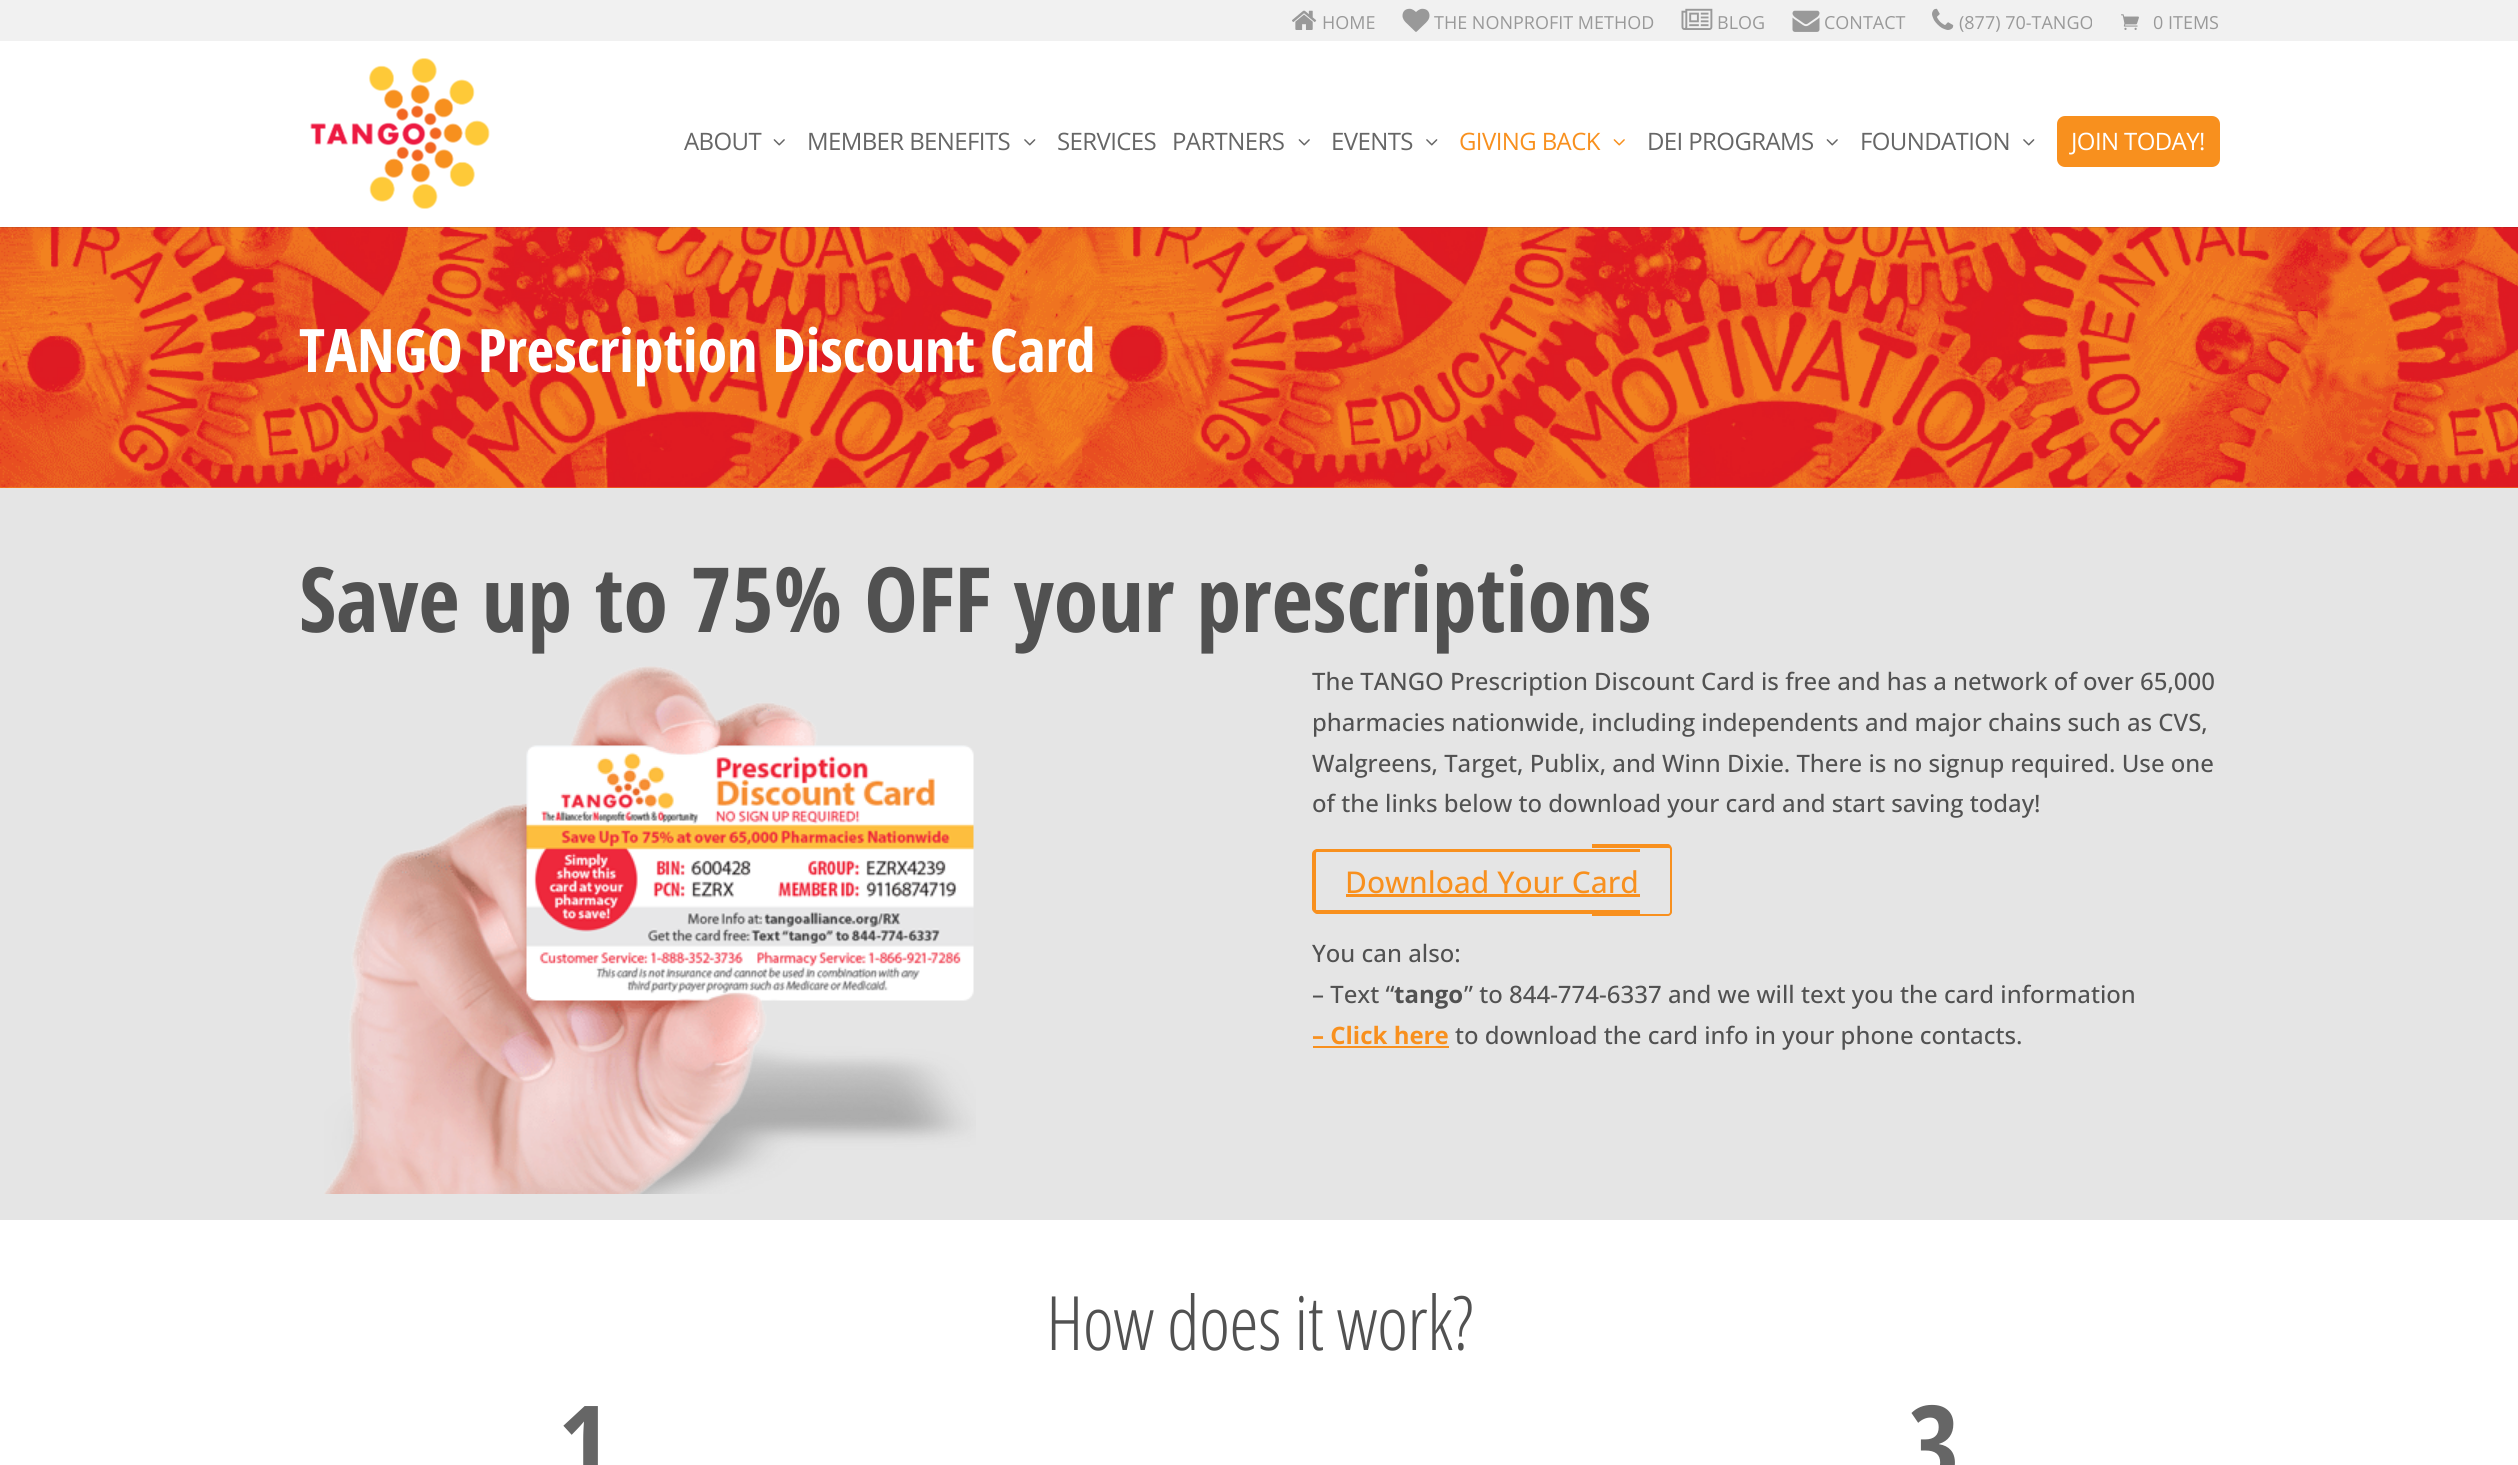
#include <cairo.h>
#include <math.h>
#include <stddef.h>


static void spaced_text(cairo_t *cr, double x, double y, const char *s, double letter, double word) {
    cairo_move_to(cr, x, y);
    while (*s) {
        char ch[5] = {0};
        int n = 0;
        do ch[n++] = *s++; while ((*s & 0xC0) == 0x80);
        cairo_show_text(cr, ch);
        cairo_rel_move_to(cr, letter + word * (*ch == ' '), 0);
    }
}

static void round_rect(cairo_t *cr, double x, double y, double w, double h, double r) {
    cairo_new_sub_path(cr);
    cairo_arc(cr, x + w - r, y + h - r, r, 0, M_PI / 2);
    cairo_arc(cr, x + r, y + h - r, r, M_PI / 2, M_PI);
    cairo_arc(cr, x + r, y + r, r, M_PI, 1.5 * M_PI);
    cairo_arc(cr, x + w - r, y + r, r, 1.5 * M_PI, 2 * M_PI);
    cairo_close_path(cr);
}

static void picture(cairo_t *cr, const char *path, double x, double y, double w, double h) {
    cairo_surface_t *image = cairo_image_surface_create_from_png(path);
    cairo_save(cr);
    cairo_set_source_surface(cr, image, x, y);
    cairo_rectangle(cr, x, y, w, h);
    cairo_fill(cr);
    cairo_restore(cr);
    cairo_surface_destroy(image);
}

int main(void) {
    cairo_surface_t *surface = cairo_image_surface_create(CAIRO_FORMAT_RGB24, 2518, 1465);
    cairo_t *cr = cairo_create(surface);
    cairo_font_options_t *options = cairo_font_options_create();
    cairo_font_options_set_hint_metrics(options, CAIRO_HINT_METRICS_OFF);
    cairo_font_options_set_hint_style(options, CAIRO_HINT_STYLE_NONE);
    cairo_set_font_options(cr, options);
    cairo_set_miter_limit(cr, 4);
    cairo_set_source_rgb(cr, 1, 1, 1);
    cairo_paint(cr);
    cairo_set_source_rgb(cr, 0.945, 0.945, 0.945);
    cairo_rectangle(cr, 0, 0, 2518, 41);
    cairo_fill(cr);
    picture(cr, "img1.png", 1292, 10, 25, 20);
    cairo_select_font_face(cr, "Open Sans", CAIRO_FONT_SLANT_NORMAL, CAIRO_FONT_WEIGHT_NORMAL);
    cairo_set_font_size(cr, 18);
    cairo_set_source_rgb(cr, 0.6, 0.6, 0.6);
    cairo_move_to(cr, 1322, 29);
    cairo_show_text(cr, "HOME");
    picture(cr, "img2.png", 1402, 8, 28, 24);
    cairo_move_to(cr, 1434, 29);
    cairo_show_text(cr, "THE NONPROFIT METHOD");
    picture(cr, "img3.png", 1681, 8, 32, 22);
    cairo_move_to(cr, 1717, 29);
    cairo_show_text(cr, "BLOG");
    picture(cr, "img4.png", 1792, 10, 28, 22);
    cairo_move_to(cr, 1824, 29);
    cairo_show_text(cr, "CONTACT");
    picture(cr, "img5.png", 1932, 8, 22, 22);
    cairo_move_to(cr, 1959, 29);
    cairo_show_text(cr, "(877) 70-TANGO");
    picture(cr, "img6.png", 2121, 14, 18, 16);
    cairo_move_to(cr, 2153, 29);
    cairo_show_text(cr, "0 ITEMS");
    cairo_set_source_rgb(cr, 0.969, 0.565, 0.118);
    cairo_rectangle(cr, 0, 487, 2518, 1);
    cairo_fill(cr);
    picture(cr, "img11.png", 0, 227, 2518, 261);
    cairo_set_source_rgba(cr, 0, 0, 0, 0.1);
    cairo_new_path(cr);
    cairo_move_to(cr, 0, 226);
    cairo_line_to(cr, 0, 228);
    cairo_line_to(cr, 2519, 228);
    cairo_line_to(cr, 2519, 42);
    cairo_line_to(cr, 2518, 42);
    cairo_line_to(cr, 2518, 226);
    cairo_close_path(cr);
    cairo_fill(cr);
    cairo_set_source_rgb(cr, 1, 1, 1);
    cairo_rectangle(cr, 0, 226, 2518, 1);
    cairo_fill(cr);
    picture(cr, "img7.png", 310, 58, 180, 151);
    cairo_set_font_size(cr, 24);
    cairo_set_source_rgb(cr, 0.4, 0.4, 0.4);
    spaced_text(cr, 684, 150, "ABOUT", -0.6, 0);
    picture(cr, "img8.png", 773, 139, 12, 7);
    spaced_text(cr, 807, 150, "MEMBER BENEFITS", -0.6, 0);
    picture(cr, "img9.png", 1024, 139, 12, 7);
    spaced_text(cr, 1057, 150, "SERVICES", -0.6, 0);
    spaced_text(cr, 1172, 150, "PARTNERS", -0.6, 0);
    picture(cr, "img8.png", 1298, 139, 12, 7);
    spaced_text(cr, 1331, 150, "EVENTS", -0.6, 0);
    picture(cr, "img9.png", 1426, 139, 12, 7);
    cairo_set_source_rgb(cr, 0.969, 0.565, 0.118);
    spaced_text(cr, 1459, 150, "GIVING BACK", -0.6, 0);
    picture(cr, "img10.png", 1613, 139, 12, 7);
    cairo_set_source_rgb(cr, 0.4, 0.4, 0.4);
    spaced_text(cr, 1647, 150, "DEI PROGRAMS", -0.6, 0);
    picture(cr, "img8.png", 1826, 139, 12, 7);
    spaced_text(cr, 1860, 150, "FOUNDATION", -0.6, 0);
    picture(cr, "img9.png", 2023, 139, 12, 7);
    cairo_set_source_rgb(cr, 0.969, 0.565, 0.118);
    round_rect(cr, 2057, 116, 163, 51, 8);
    cairo_fill(cr);
    cairo_set_source_rgb(cr, 1, 1, 1);
    spaced_text(cr, 2071, 150, "JOIN TODAY!", -0.6, 0);
    cairo_select_font_face(cr, "Open Sans Condensed", CAIRO_FONT_SLANT_NORMAL, CAIRO_FONT_WEIGHT_BOLD);
    cairo_set_font_size(cr, 60);
    cairo_move_to(cr, 299, 372);
    cairo_show_text(cr, "TANGO Prescription Discount Card");
    cairo_set_source_rgb(cr, 0.898, 0.898, 0.898);
    cairo_rectangle(cr, 0, 488, 2518, 732);
    cairo_fill(cr);
    cairo_set_font_size(cr, 90);
    cairo_set_source_rgb(cr, 0.318, 0.318, 0.318);
    cairo_move_to(cr, 299, 632);
    cairo_show_text(cr, "Save up to 75% OFF your prescriptions");
    picture(cr, "img12.png", 324, 666, 652, 528);
    cairo_select_font_face(cr, "Open Sans Medium", CAIRO_FONT_SLANT_NORMAL, CAIRO_FONT_WEIGHT_NORMAL);
    cairo_set_font_size(cr, 24);
    cairo_move_to(cr, 1312, 690);
    cairo_show_text(cr, "The TANGO Prescription Discount Card is free and has a network of over 65,000");
    cairo_move_to(cr, 1312, 731);
    cairo_show_text(cr, "pharmacies nationwide, including independents and major chains such as CVS,");
    cairo_move_to(cr, 1312, 772);
    cairo_show_text(cr, "Walgreens, Target, Publix, and Winn Dixie. There is no signup required. Use one");
    cairo_move_to(cr, 1312, 812);
    cairo_show_text(cr, "of the links below to download your card and start saving today!");
    cairo_set_source_rgb(cr, 0.969, 0.565, 0.118);
    cairo_set_fill_rule(cr, CAIRO_FILL_RULE_EVEN_ODD);
    cairo_new_path(cr);
    cairo_move_to(cr, 1317, 849);
    cairo_line_to(cr, 1640, 849);
    cairo_line_to(cr, 1640, 914);
    cairo_line_to(cr, 1317, 914);
    cairo_curve_to(cr, 1315, 914, 1312, 911, 1312, 909);
    cairo_line_to(cr, 1312, 854);
    cairo_curve_to(cr, 1312, 851, 1315, 849, 1317, 849);
    cairo_close_path(cr);
    cairo_move_to(cr, 1317, 852);
    cairo_line_to(cr, 1640, 852);
    cairo_line_to(cr, 1640, 910);
    cairo_line_to(cr, 1317, 910);
    cairo_curve_to(cr, 1316, 910, 1316, 910, 1316, 909);
    cairo_line_to(cr, 1316, 854);
    cairo_curve_to(cr, 1316, 853, 1316, 852, 1317, 852);
    cairo_close_path(cr);
    cairo_fill(cr);
    cairo_new_path(cr);
    cairo_move_to(cr, 1592, 844);
    cairo_line_to(cr, 1668, 844);
    cairo_curve_to(cr, 1670, 844, 1672, 847, 1672, 849);
    cairo_line_to(cr, 1672, 912);
    cairo_curve_to(cr, 1672, 914, 1670, 916, 1668, 916);
    cairo_line_to(cr, 1592, 916);
    cairo_close_path(cr);
    cairo_move_to(cr, 1592, 848);
    cairo_line_to(cr, 1668, 848);
    cairo_curve_to(cr, 1669, 848, 1670, 848, 1670, 849);
    cairo_line_to(cr, 1670, 912);
    cairo_curve_to(cr, 1670, 913, 1669, 914, 1668, 914);
    cairo_line_to(cr, 1592, 914);
    cairo_close_path(cr);
    cairo_fill(cr);
    cairo_set_font_size(cr, 30);
    cairo_move_to(cr, 1345, 893);
    cairo_show_text(cr, "Download Your Card");
    cairo_rectangle(cr, 1346, 894, 294, 3);
    cairo_fill(cr);
    cairo_set_font_size(cr, 24);
    cairo_set_source_rgb(cr, 0.318, 0.318, 0.318);
    cairo_move_to(cr, 1312, 962);
    cairo_show_text(cr, "You can also:");
    cairo_move_to(cr, 1312, 1003);
    cairo_show_text(cr, "– Text “");
    cairo_select_font_face(cr, "Open Sans", CAIRO_FONT_SLANT_NORMAL, CAIRO_FONT_WEIGHT_BOLD);
    cairo_move_to(cr, 1394, 1003);
    cairo_show_text(cr, "tango");
    cairo_select_font_face(cr, "Open Sans Medium", CAIRO_FONT_SLANT_NORMAL, CAIRO_FONT_WEIGHT_NORMAL);
    cairo_move_to(cr, 1464, 1003);
    cairo_show_text(cr, "” to 844-774-6337 and we will text you the card information");
    cairo_select_font_face(cr, "Open Sans", CAIRO_FONT_SLANT_NORMAL, CAIRO_FONT_WEIGHT_BOLD);
    cairo_set_source_rgb(cr, 0.969, 0.565, 0.118);
    cairo_move_to(cr, 1312, 1044);
    cairo_show_text(cr, "– Click here");
    cairo_rectangle(cr, 1313, 1046, 136, 2);
    cairo_fill(cr);
    cairo_select_font_face(cr, "Open Sans Medium", CAIRO_FONT_SLANT_NORMAL, CAIRO_FONT_WEIGHT_NORMAL);
    cairo_set_source_rgb(cr, 0.318, 0.318, 0.318);
    cairo_move_to(cr, 1455, 1044);
    cairo_show_text(cr, "to download the card info in your phone contacts.");
    cairo_select_font_face(cr, "Open Sans Condensed Light", CAIRO_FONT_SLANT_NORMAL, CAIRO_FONT_WEIGHT_NORMAL);
    cairo_set_font_size(cr, 75);
    spaced_text(cr, 1046, 1350, "How does it work?", -0.75, 0);
    cairo_select_font_face(cr, "Open Sans Condensed", CAIRO_FONT_SLANT_NORMAL, CAIRO_FONT_WEIGHT_BOLD);
    cairo_set_font_size(cr, 112);
    cairo_set_source_rgb(cr, 0.4, 0.4, 0.4);
    cairo_move_to(cr, 558, 1486);
    cairo_show_text(cr, "1");
    cairo_move_to(cr, 1908, 1486);
    cairo_show_text(cr, "3");
    cairo_surface_write_to_png(surface, "page.png");
    cairo_font_options_destroy(options);
    cairo_destroy(cr);
    cairo_surface_destroy(surface);
    return 0;
}
